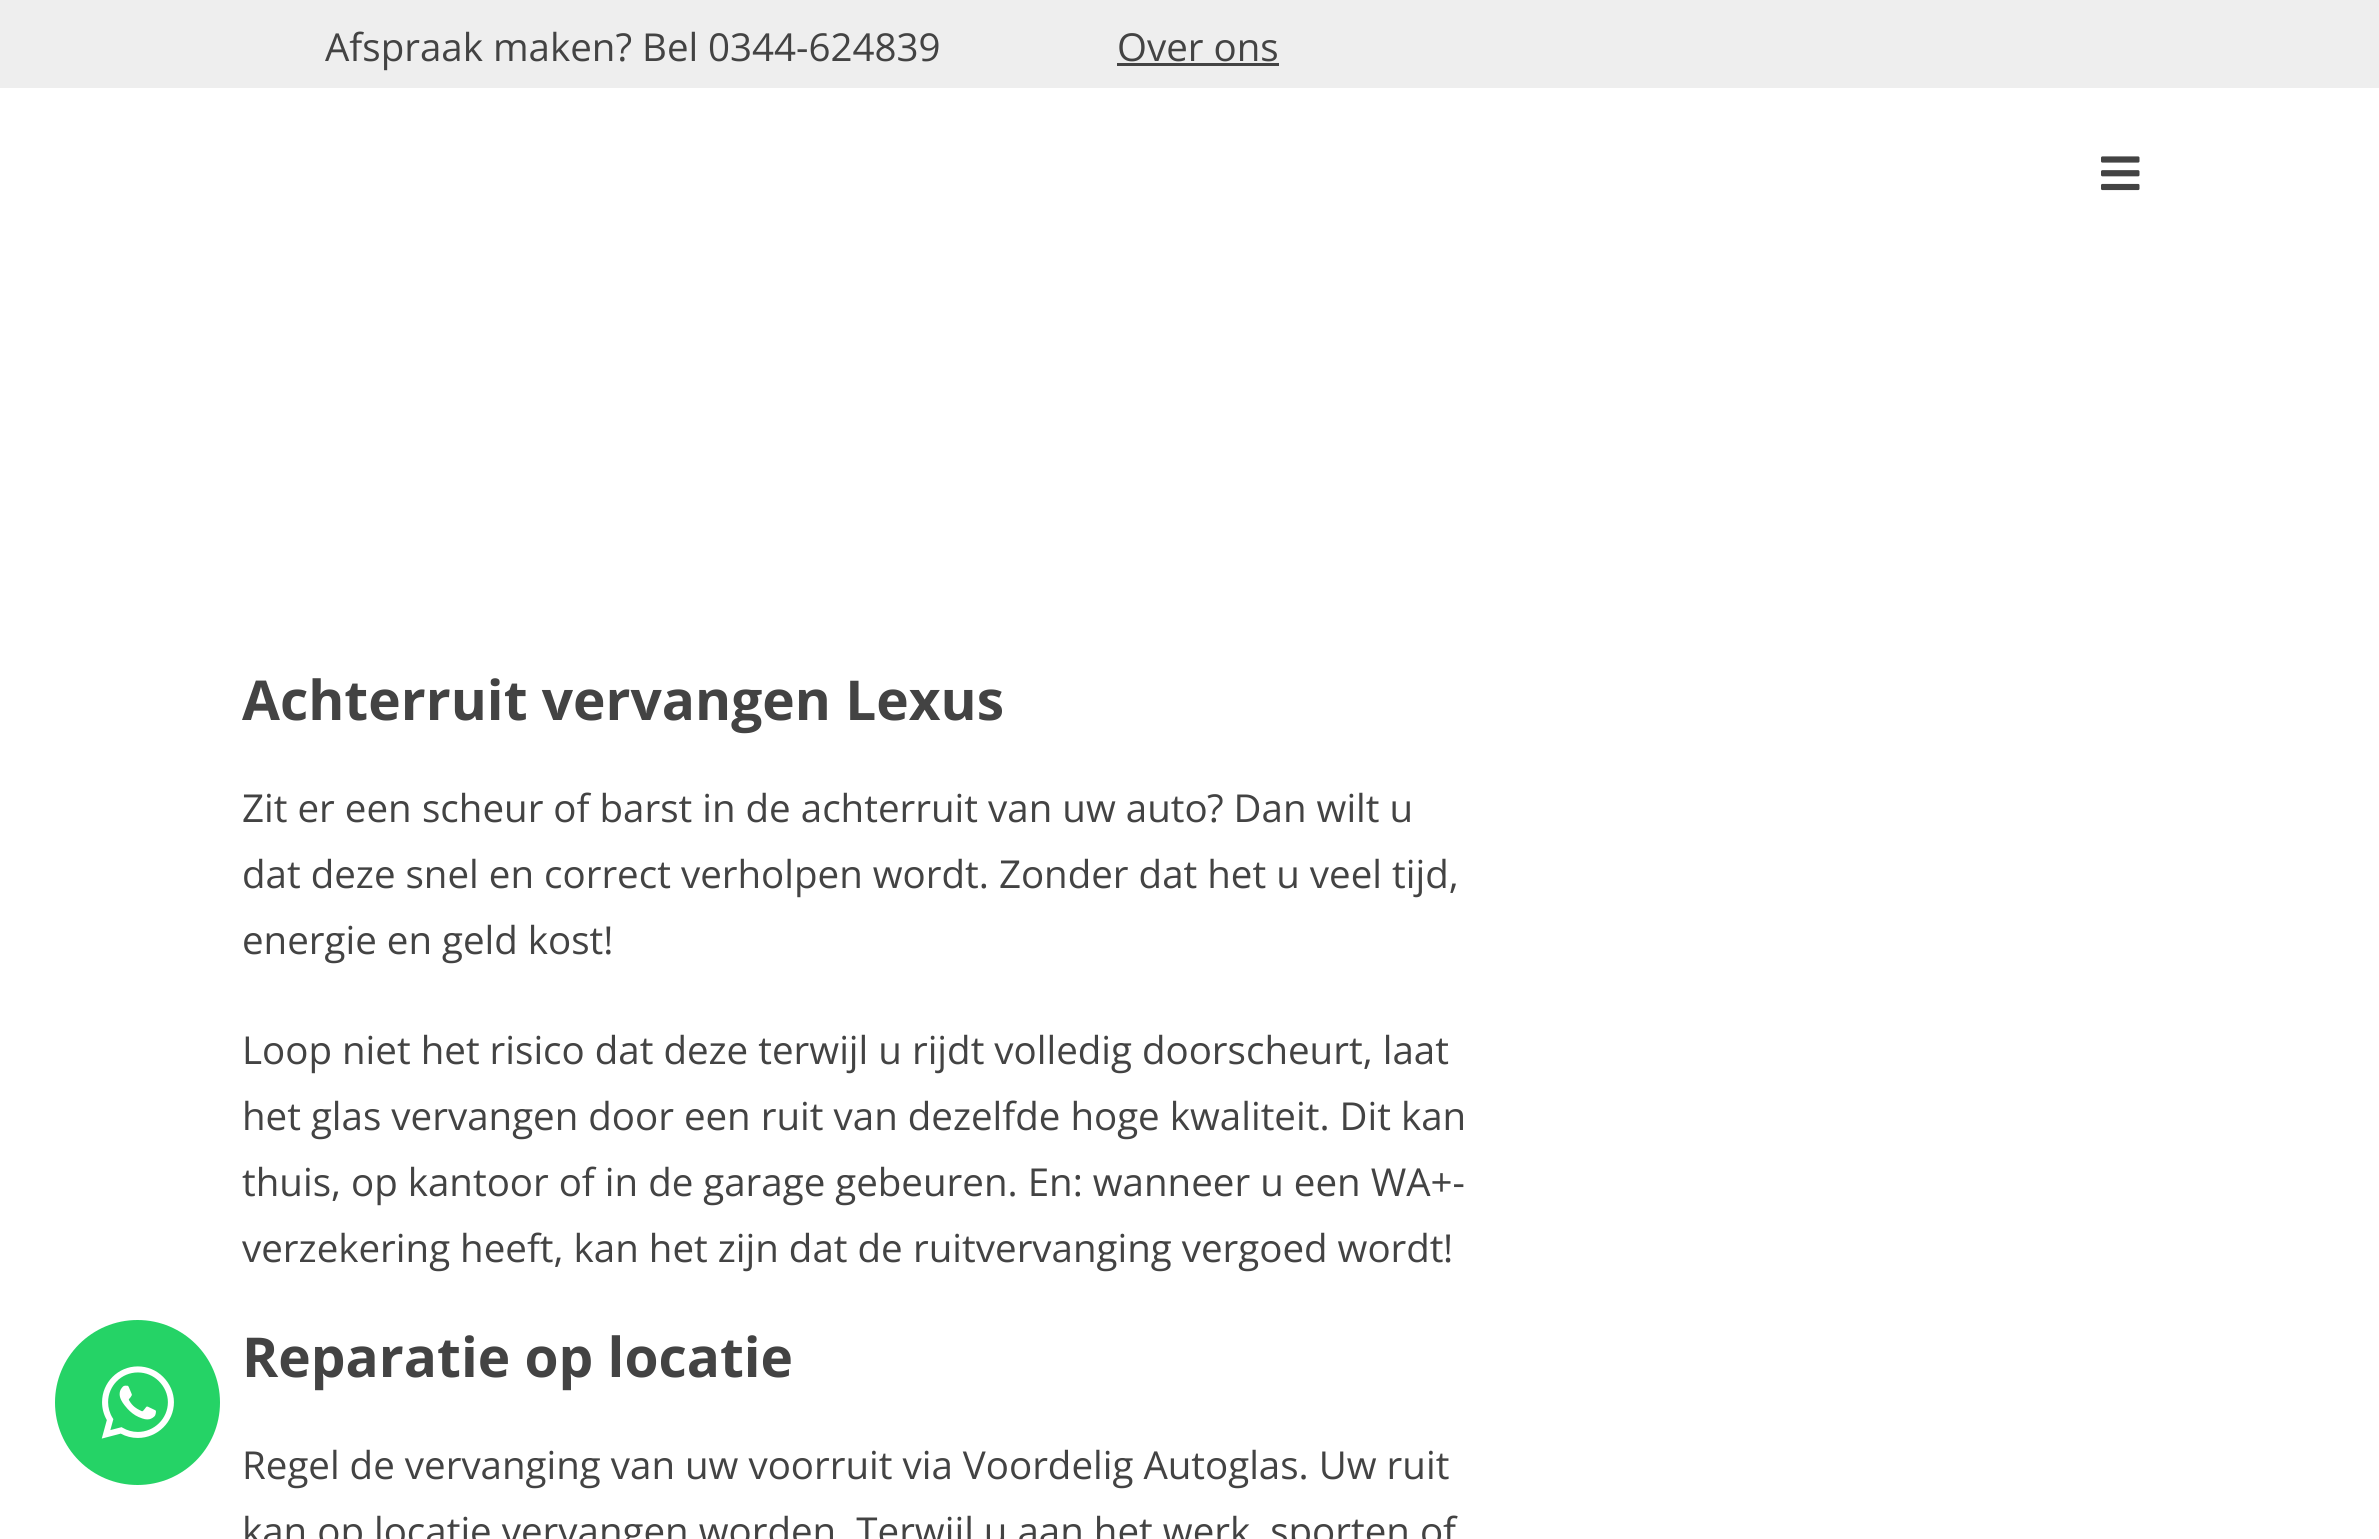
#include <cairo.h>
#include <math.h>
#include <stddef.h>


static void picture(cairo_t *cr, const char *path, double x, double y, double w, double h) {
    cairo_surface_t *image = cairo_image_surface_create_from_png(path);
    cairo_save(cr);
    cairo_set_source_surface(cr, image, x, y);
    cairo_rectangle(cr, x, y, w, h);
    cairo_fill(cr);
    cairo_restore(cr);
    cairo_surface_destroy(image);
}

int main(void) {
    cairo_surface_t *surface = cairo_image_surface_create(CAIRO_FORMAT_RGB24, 2379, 1539);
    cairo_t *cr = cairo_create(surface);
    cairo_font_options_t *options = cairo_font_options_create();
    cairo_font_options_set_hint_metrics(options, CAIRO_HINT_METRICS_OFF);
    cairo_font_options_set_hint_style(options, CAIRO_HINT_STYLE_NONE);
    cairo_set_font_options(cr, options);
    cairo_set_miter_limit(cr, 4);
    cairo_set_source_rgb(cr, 1, 1, 1);
    cairo_paint(cr);
    cairo_set_source_rgb(cr, 0.933, 0.933, 0.933);
    cairo_rectangle(cr, 0, 0, 2379, 88);
    cairo_fill(cr);
    cairo_select_font_face(cr, "Open Sans", CAIRO_FONT_SLANT_NORMAL, CAIRO_FONT_WEIGHT_NORMAL);
    cairo_set_font_size(cr, 38.5);
    cairo_set_source_rgb(cr, 0.263, 0.263, 0.263);
    cairo_move_to(cr, 325, 61);
    cairo_show_text(cr, "Afspraak maken? Bel");
    cairo_move_to(cr, 708, 61);
    cairo_show_text(cr, "0344-624839");
    cairo_move_to(cr, 1117, 61);
    cairo_show_text(cr, "Over ons");
    cairo_set_source_rgb(cr, 0.267, 0.267, 0.267);
    cairo_rectangle(cr, 1117, 63, 162, 3);
    cairo_fill(cr);
    picture(cr, "img1.png", 2101, 156, 39, 35);
    cairo_set_source_rgb(cr, 0.145, 0.827, 0.4);
    cairo_arc(cr, 137.5, 1402.5, 82.5, 0, 2 * M_PI);
    cairo_fill(cr);
    picture(cr, "img2.png", 101, 1366, 73, 73);
    cairo_select_font_face(cr, "Open Sans", CAIRO_FONT_SLANT_NORMAL, CAIRO_FONT_WEIGHT_BOLD);
    cairo_set_font_size(cr, 55);
    cairo_set_source_rgb(cr, 0.263, 0.263, 0.263);
    cairo_move_to(cr, 242, 720);
    cairo_show_text(cr, "Achterruit vervangen Lexus");
    cairo_select_font_face(cr, "Open Sans", CAIRO_FONT_SLANT_NORMAL, CAIRO_FONT_WEIGHT_NORMAL);
    cairo_set_font_size(cr, 38.5);
    cairo_move_to(cr, 242, 822);
    cairo_show_text(cr, "Zit er een");
    cairo_move_to(cr, 422, 822);
    cairo_show_text(cr, "scheur of barst in de achterruit van uw auto");
    cairo_move_to(cr, 1207, 822);
    cairo_show_text(cr, "? Dan wilt u");
    cairo_move_to(cr, 242, 888);
    cairo_show_text(cr, "dat deze snel en correct verholpen wordt. Zonder dat het u veel tijd,");
    cairo_move_to(cr, 242, 954);
    cairo_show_text(cr, "energie en geld kost!");
    cairo_move_to(cr, 242, 1064);
    cairo_show_text(cr, "Loop niet het risico dat deze terwijl u rijdt volledig doorscheurt, laat");
    cairo_move_to(cr, 242, 1130);
    cairo_show_text(cr, "het glas vervangen door een ruit van dezelfde hoge kwaliteit. Dit kan");
    cairo_move_to(cr, 242, 1196);
    cairo_show_text(cr, "thuis, op kantoor of in de garage gebeuren. En: wanneer u een WA+-");
    cairo_move_to(cr, 242, 1262);
    cairo_show_text(cr, "verzekering heeft, kan het zijn dat de");
    cairo_move_to(cr, 913, 1262);
    cairo_show_text(cr, "ruitvervanging vergoed wordt");
    cairo_move_to(cr, 1443, 1262);
    cairo_show_text(cr, "!");
    cairo_select_font_face(cr, "Open Sans", CAIRO_FONT_SLANT_NORMAL, CAIRO_FONT_WEIGHT_BOLD);
    cairo_set_font_size(cr, 55);
    cairo_move_to(cr, 242, 1377);
    cairo_show_text(cr, "Reparatie op locatie");
    cairo_select_font_face(cr, "Open Sans", CAIRO_FONT_SLANT_NORMAL, CAIRO_FONT_WEIGHT_NORMAL);
    cairo_set_font_size(cr, 38.5);
    cairo_move_to(cr, 242, 1479);
    cairo_show_text(cr, "Regel de vervanging van uw voorruit via Voordelig Autoglas. Uw ruit");
    cairo_move_to(cr, 242, 1545);
    cairo_show_text(cr, "kan op locatie vervangen worden. Terwijl u aan het werk, sporten of");
    cairo_surface_write_to_png(surface, "page.png");
    cairo_font_options_destroy(options);
    cairo_destroy(cr);
    cairo_surface_destroy(surface);
    return 0;
}
